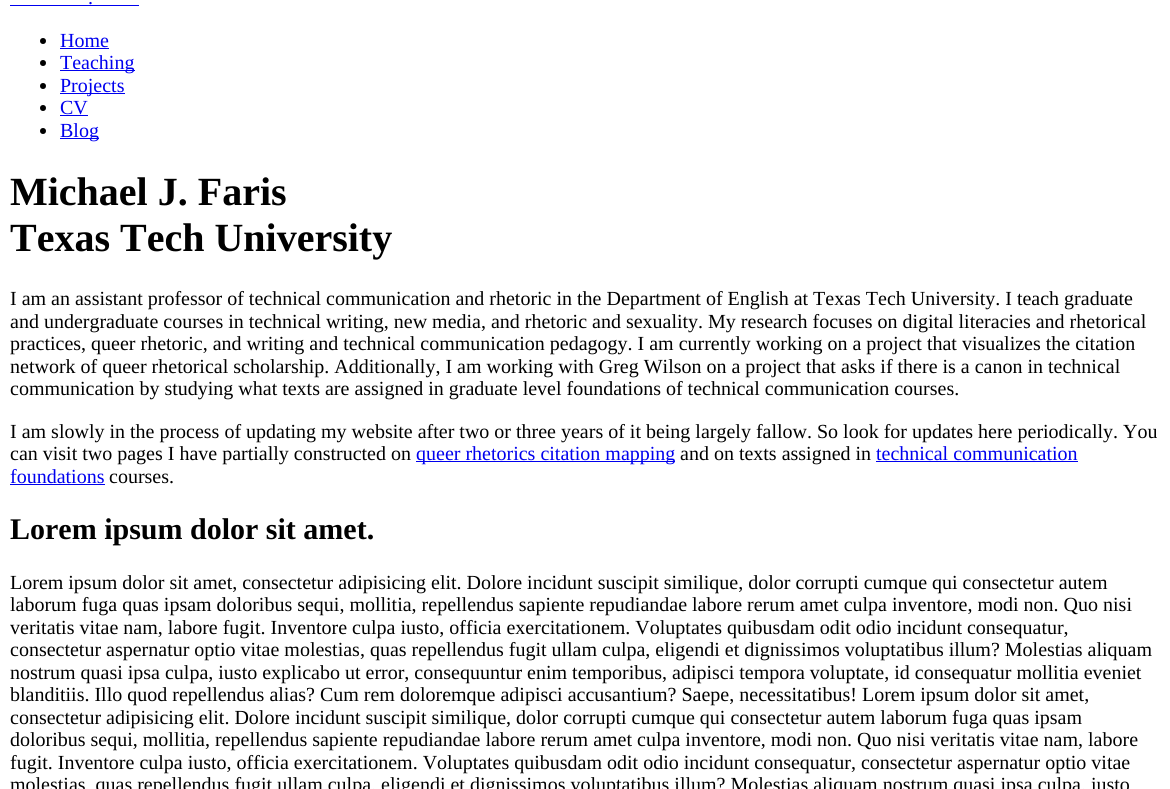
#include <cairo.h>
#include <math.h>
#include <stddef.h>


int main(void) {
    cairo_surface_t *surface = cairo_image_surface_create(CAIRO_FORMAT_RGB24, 1170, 789);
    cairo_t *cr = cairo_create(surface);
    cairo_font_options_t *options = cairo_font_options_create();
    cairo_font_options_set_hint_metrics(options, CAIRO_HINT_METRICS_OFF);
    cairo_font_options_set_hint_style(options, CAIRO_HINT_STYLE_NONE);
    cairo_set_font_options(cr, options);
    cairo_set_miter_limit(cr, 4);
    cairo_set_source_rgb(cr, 1, 1, 1);
    cairo_paint(cr);
    cairo_select_font_face(cr, "Liberation Serif", CAIRO_FONT_SLANT_NORMAL, CAIRO_FONT_WEIGHT_NORMAL);
    cairo_set_font_size(cr, 20);
    cairo_set_source_rgb(cr, 0, 0, 0.933);
    cairo_move_to(cr, 88, 4);
    cairo_show_text(cr, ".");
    cairo_rectangle(cr, 10, 5, 129, 1);
    cairo_fill(cr);
    cairo_set_source_rgb(cr, 0, 0, 0);
    cairo_arc(cr, 43, 41, 3, 0, 2 * M_PI);
    cairo_fill(cr);
    cairo_set_source_rgb(cr, 0, 0, 0.933);
    cairo_move_to(cr, 60, 47);
    cairo_show_text(cr, "Home");
    cairo_rectangle(cr, 60, 48, 49, 1);
    cairo_fill(cr);
    cairo_set_source_rgb(cr, 0, 0, 0);
    cairo_arc(cr, 43, 63, 3, 0, 2 * M_PI);
    cairo_fill(cr);
    cairo_set_source_rgb(cr, 0, 0, 0.933);
    cairo_rectangle(cr, 60, 70, 75, 1);
    cairo_fill(cr);
    cairo_move_to(cr, 60, 69);
    cairo_show_text(cr, "Teaching");
    cairo_set_source_rgb(cr, 0, 0, 0);
    cairo_new_path(cr);
    cairo_arc(cr, 43, 86, 3, 0, 2 * M_PI);
    cairo_fill(cr);
    cairo_set_source_rgb(cr, 0, 0, 0.933);
    cairo_rectangle(cr, 60, 93, 65, 1);
    cairo_fill(cr);
    cairo_move_to(cr, 60, 92);
    cairo_show_text(cr, "Projects");
    cairo_set_source_rgb(cr, 0, 0, 0);
    cairo_new_path(cr);
    cairo_arc(cr, 43, 108, 3, 0, 2 * M_PI);
    cairo_fill(cr);
    cairo_set_source_rgb(cr, 0, 0, 0.933);
    cairo_move_to(cr, 60, 114);
    cairo_show_text(cr, "CV");
    cairo_rectangle(cr, 60, 115, 28, 1);
    cairo_fill(cr);
    cairo_set_source_rgb(cr, 0, 0, 0);
    cairo_arc(cr, 43, 131, 3, 0, 2 * M_PI);
    cairo_fill(cr);
    cairo_set_source_rgb(cr, 0, 0, 0.933);
    cairo_rectangle(cr, 60, 138, 39, 1);
    cairo_fill(cr);
    cairo_move_to(cr, 60, 137);
    cairo_show_text(cr, "Blog");
    cairo_select_font_face(cr, "Liberation Serif", CAIRO_FONT_SLANT_NORMAL, CAIRO_FONT_WEIGHT_BOLD);
    cairo_set_font_size(cr, 40);
    cairo_set_source_rgb(cr, 0, 0, 0);
    cairo_move_to(cr, 10, 205);
    cairo_show_text(cr, "Michael J. Faris");
    cairo_move_to(cr, 10, 251);
    cairo_show_text(cr, "Texas Tech University");
    cairo_select_font_face(cr, "Liberation Serif", CAIRO_FONT_SLANT_NORMAL, CAIRO_FONT_WEIGHT_NORMAL);
    cairo_set_font_size(cr, 20);
    cairo_move_to(cr, 10, 305);
    cairo_show_text(cr, "I am an assistant professor of technical communication and rhetoric in the Department of English at Texas Tech University. I teach graduate");
    cairo_move_to(cr, 10, 328);
    cairo_show_text(cr, "and undergraduate courses in technical writing, new media, and rhetoric and sexuality. My research focuses on digital literacies and rhetorical");
    cairo_move_to(cr, 10, 350);
    cairo_show_text(cr, "practices, queer rhetoric, and writing and technical communication pedagogy. I am currently working on a project that visualizes the citation");
    cairo_move_to(cr, 10, 373);
    cairo_show_text(cr, "network of queer rhetorical scholarship. Additionally, I am working with Greg Wilson on a project that asks if there is a canon in technical");
    cairo_move_to(cr, 10, 395);
    cairo_show_text(cr, "communication by studying what texts are assigned in graduate level foundations of technical communication courses.");
    cairo_move_to(cr, 10, 438);
    cairo_show_text(cr, "I am slowly in the process of updating my website after two or three years of it being largely fallow. So look for updates here periodically. You");
    cairo_move_to(cr, 10, 460);
    cairo_show_text(cr, "can visit two pages I have partially constructed on");
    cairo_set_source_rgb(cr, 0, 0, 0.933);
    cairo_rectangle(cr, 416, 461, 259, 1);
    cairo_fill(cr);
    cairo_move_to(cr, 416, 460);
    cairo_show_text(cr, "queer rhetorics citation mapping");
    cairo_set_source_rgb(cr, 0, 0, 0);
    cairo_move_to(cr, 680, 460);
    cairo_show_text(cr, "and on texts assigned in");
    cairo_set_source_rgb(cr, 0, 0, 0.933);
    cairo_move_to(cr, 876, 460);
    cairo_show_text(cr, "technical communication");
    cairo_rectangle(cr, 876, 461, 202, 1);
    cairo_fill(cr);
    cairo_move_to(cr, 10, 483);
    cairo_show_text(cr, "foundations");
    cairo_rectangle(cr, 10, 484, 95, 1);
    cairo_fill(cr);
    cairo_set_source_rgb(cr, 0, 0, 0);
    cairo_move_to(cr, 109, 483);
    cairo_show_text(cr, "courses.");
    cairo_select_font_face(cr, "Liberation Serif", CAIRO_FONT_SLANT_NORMAL, CAIRO_FONT_WEIGHT_BOLD);
    cairo_set_font_size(cr, 30);
    cairo_move_to(cr, 10, 539);
    cairo_show_text(cr, "Lorem ipsum dolor sit amet.");
    cairo_select_font_face(cr, "Liberation Serif", CAIRO_FONT_SLANT_NORMAL, CAIRO_FONT_WEIGHT_NORMAL);
    cairo_set_font_size(cr, 20);
    cairo_move_to(cr, 10, 589);
    cairo_show_text(cr, "Lorem ipsum dolor sit amet, consectetur adipisicing elit. Dolore incidunt suscipit similique, dolor corrupti cumque qui consectetur autem");
    cairo_move_to(cr, 10, 611);
    cairo_show_text(cr, "laborum fuga quas ipsam doloribus sequi, mollitia, repellendus sapiente repudiandae labore rerum amet culpa inventore, modi non. Quo nisi");
    cairo_move_to(cr, 10, 634);
    cairo_show_text(cr, "veritatis vitae nam, labore fugit. Inventore culpa iusto, officia exercitationem. Voluptates quibusdam odit odio incidunt consequatur,");
    cairo_move_to(cr, 10, 656);
    cairo_show_text(cr, "consectetur aspernatur optio vitae molestias, quas repellendus fugit ullam culpa, eligendi et dignissimos voluptatibus illum? Molestias aliquam");
    cairo_move_to(cr, 10, 679);
    cairo_show_text(cr, "nostrum quasi ipsa culpa, iusto explicabo ut error, consequuntur enim temporibus, adipisci tempora voluptate, id consequatur mollitia eveniet");
    cairo_move_to(cr, 10, 701);
    cairo_show_text(cr, "blanditiis. Illo quod repellendus alias? Cum rem doloremque adipisci accusantium? Saepe, necessitatibus! Lorem ipsum dolor sit amet,");
    cairo_move_to(cr, 10, 724);
    cairo_show_text(cr, "consectetur adipisicing elit. Dolore incidunt suscipit similique, dolor corrupti cumque qui consectetur autem laborum fuga quas ipsam");
    cairo_move_to(cr, 10, 746);
    cairo_show_text(cr, "doloribus sequi, mollitia, repellendus sapiente repudiandae labore rerum amet culpa inventore, modi non. Quo nisi veritatis vitae nam, labore");
    cairo_move_to(cr, 10, 769);
    cairo_show_text(cr, "fugit. Inventore culpa iusto, officia exercitationem. Voluptates quibusdam odit odio incidunt consequatur, consectetur aspernatur optio vitae");
    cairo_move_to(cr, 10, 791);
    cairo_show_text(cr, "molestias, quas repellendus fugit ullam culpa, eligendi et dignissimos voluptatibus illum? Molestias aliquam nostrum quasi ipsa culpa, iusto");
    cairo_surface_write_to_png(surface, "page.png");
    cairo_font_options_destroy(options);
    cairo_destroy(cr);
    cairo_surface_destroy(surface);
    return 0;
}
